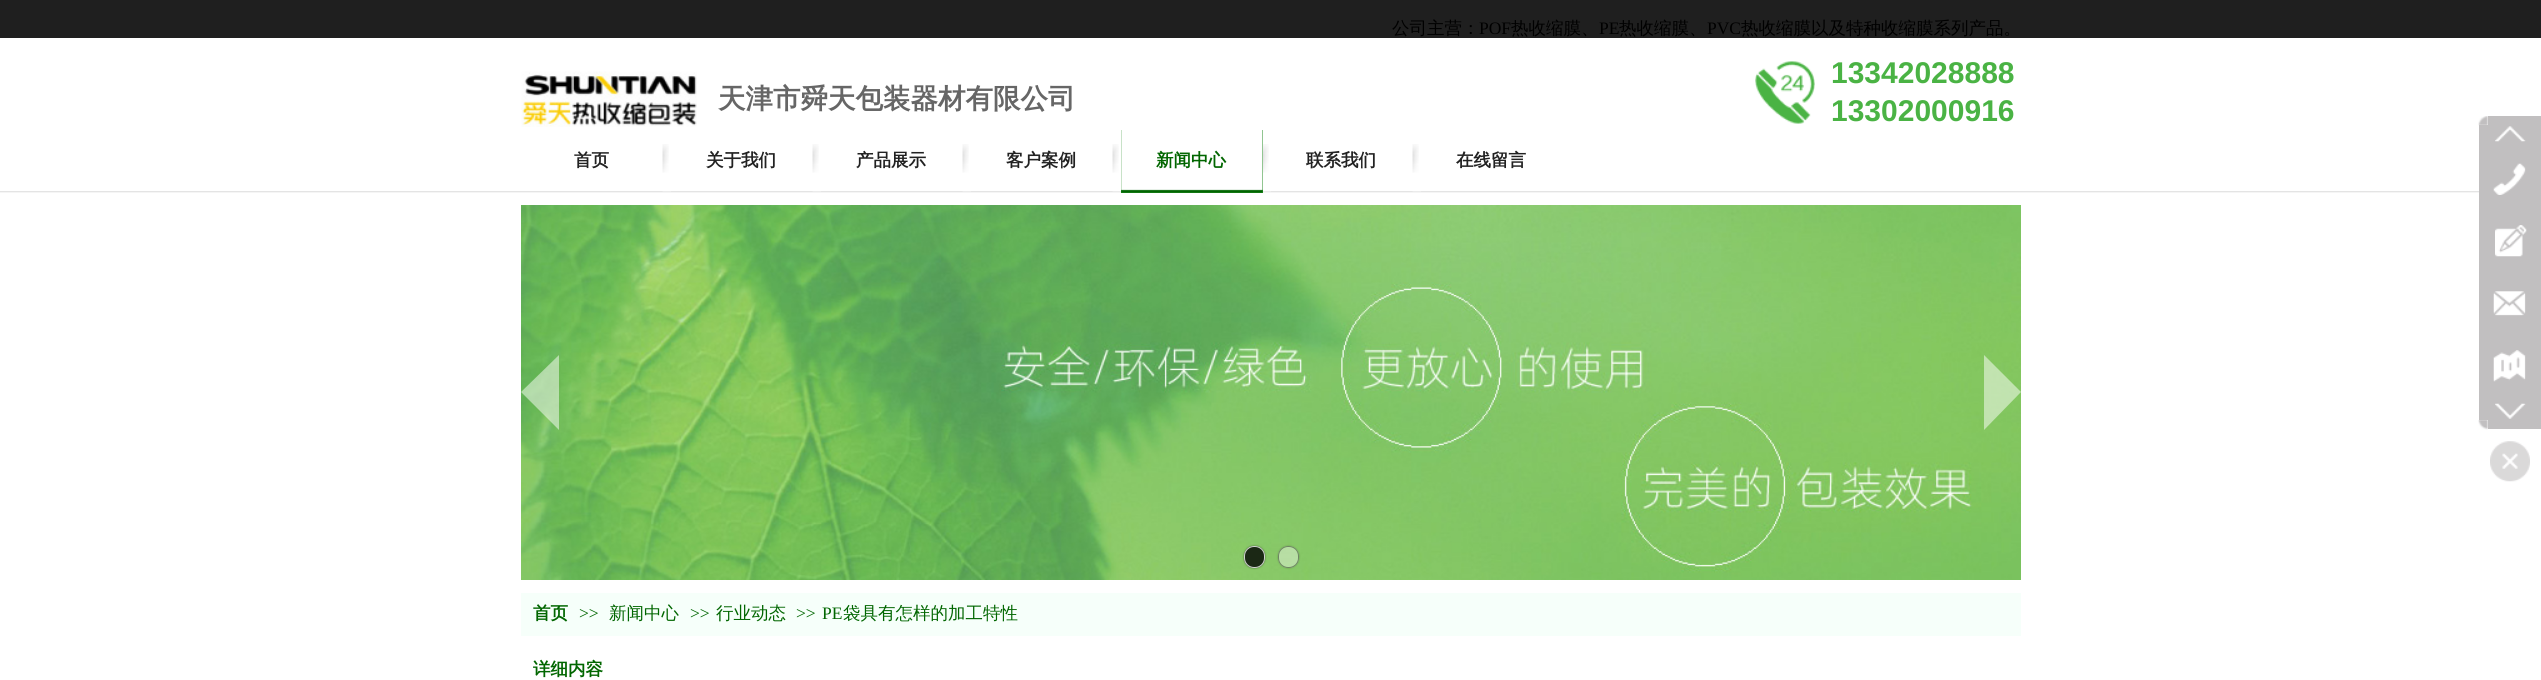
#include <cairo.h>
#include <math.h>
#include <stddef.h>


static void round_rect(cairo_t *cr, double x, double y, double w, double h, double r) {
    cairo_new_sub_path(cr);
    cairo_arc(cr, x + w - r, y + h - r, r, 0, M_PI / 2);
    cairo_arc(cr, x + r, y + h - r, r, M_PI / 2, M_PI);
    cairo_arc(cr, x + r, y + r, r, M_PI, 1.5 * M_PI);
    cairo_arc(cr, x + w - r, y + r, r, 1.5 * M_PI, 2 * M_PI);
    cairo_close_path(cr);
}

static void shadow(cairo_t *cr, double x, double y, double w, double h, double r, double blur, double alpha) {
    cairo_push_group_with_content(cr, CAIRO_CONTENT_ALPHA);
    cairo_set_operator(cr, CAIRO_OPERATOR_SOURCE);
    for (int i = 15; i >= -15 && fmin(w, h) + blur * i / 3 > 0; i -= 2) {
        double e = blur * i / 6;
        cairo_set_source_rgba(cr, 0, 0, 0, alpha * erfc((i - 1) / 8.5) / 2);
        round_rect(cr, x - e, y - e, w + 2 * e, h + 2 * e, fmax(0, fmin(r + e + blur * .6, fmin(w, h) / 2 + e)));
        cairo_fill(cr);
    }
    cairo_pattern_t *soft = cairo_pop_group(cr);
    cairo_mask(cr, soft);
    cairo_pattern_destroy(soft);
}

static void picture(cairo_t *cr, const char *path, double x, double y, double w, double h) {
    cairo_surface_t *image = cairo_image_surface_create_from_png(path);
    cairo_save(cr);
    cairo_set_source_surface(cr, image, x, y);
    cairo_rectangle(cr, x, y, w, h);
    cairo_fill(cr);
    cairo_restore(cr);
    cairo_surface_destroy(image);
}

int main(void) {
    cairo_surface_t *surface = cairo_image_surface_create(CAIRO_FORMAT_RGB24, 2541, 680);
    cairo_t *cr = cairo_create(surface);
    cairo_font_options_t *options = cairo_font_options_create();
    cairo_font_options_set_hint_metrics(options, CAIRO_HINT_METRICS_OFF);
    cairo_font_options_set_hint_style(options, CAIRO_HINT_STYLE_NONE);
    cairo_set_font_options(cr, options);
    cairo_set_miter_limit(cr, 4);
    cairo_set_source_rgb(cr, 1, 1, 1);
    cairo_paint(cr);
    cairo_set_source_rgb(cr, 0.122, 0.122, 0.122);
    cairo_rectangle(cr, 0, 0, 2541, 38);
    cairo_fill(cr);
    cairo_select_font_face(cr, "WenQuanYi Zen Hei Medium", CAIRO_FONT_SLANT_NORMAL, CAIRO_FONT_WEIGHT_NORMAL);
    cairo_set_font_size(cr, 17.5);
    cairo_set_source_rgb(cr, 0, 0, 0);
    cairo_move_to(cr, 1392, 34);
    cairo_show_text(cr, "公司主营：");
    cairo_select_font_face(cr, "Liberation Serif", CAIRO_FONT_SLANT_NORMAL, CAIRO_FONT_WEIGHT_NORMAL);
    cairo_move_to(cr, 1479, 34);
    cairo_show_text(cr, "POF");
    cairo_select_font_face(cr, "WenQuanYi Zen Hei Medium", CAIRO_FONT_SLANT_NORMAL, CAIRO_FONT_WEIGHT_NORMAL);
    cairo_move_to(cr, 1511, 34);
    cairo_show_text(cr, "热收缩膜、");
    cairo_select_font_face(cr, "Liberation Serif", CAIRO_FONT_SLANT_NORMAL, CAIRO_FONT_WEIGHT_NORMAL);
    cairo_move_to(cr, 1599, 34);
    cairo_show_text(cr, "PE");
    cairo_select_font_face(cr, "WenQuanYi Zen Hei Medium", CAIRO_FONT_SLANT_NORMAL, CAIRO_FONT_WEIGHT_NORMAL);
    cairo_move_to(cr, 1619, 34);
    cairo_show_text(cr, "热收缩膜、");
    cairo_select_font_face(cr, "Liberation Serif", CAIRO_FONT_SLANT_NORMAL, CAIRO_FONT_WEIGHT_NORMAL);
    cairo_move_to(cr, 1707, 34);
    cairo_show_text(cr, "PVC");
    cairo_select_font_face(cr, "WenQuanYi Zen Hei Medium", CAIRO_FONT_SLANT_NORMAL, CAIRO_FONT_WEIGHT_NORMAL);
    cairo_move_to(cr, 1741, 34);
    cairo_show_text(cr, "热收缩膜以及特种收缩膜系列产品。");
    picture(cr, "img1.png", 521, 71, 176, 56);
    cairo_select_font_face(cr, "WenQuanYi Zen Hei", CAIRO_FONT_SLANT_NORMAL, CAIRO_FONT_WEIGHT_BOLD);
    cairo_set_font_size(cr, 27.5);
    cairo_set_source_rgb(cr, 0.4, 0.4, 0.4);
    cairo_move_to(cr, 718, 108);
    cairo_show_text(cr, "天津市舜天包装器材有限公司");
    picture(cr, "img2.png", 1755, 61, 60, 63);
    cairo_select_font_face(cr, "Liberation Sans", CAIRO_FONT_SLANT_NORMAL, CAIRO_FONT_WEIGHT_BOLD);
    cairo_set_font_size(cr, 30);
    cairo_set_source_rgb(cr, 0.29, 0.702, 0.267);
    cairo_move_to(cr, 1831, 83);
    cairo_show_text(cr, "13342028888");
    cairo_move_to(cr, 1831, 121);
    cairo_show_text(cr, "13302000916");
    cairo_select_font_face(cr, "WenQuanYi Zen Hei", CAIRO_FONT_SLANT_NORMAL, CAIRO_FONT_WEIGHT_BOLD);
    cairo_set_font_size(cr, 17.5);
    cairo_set_source_rgb(cr, 0.133, 0.133, 0.133);
    cairo_move_to(cr, 574, 166);
    cairo_show_text(cr, "首页");
    picture(cr, "img7.png", 0, 191, 2479, 2);
    picture(cr, "img3.png", 662, 144, 9, 48);
    cairo_move_to(cr, 706, 166);
    cairo_show_text(cr, "关于我们");
    picture(cr, "img4.png", 812, 144, 9, 48);
    cairo_move_to(cr, 856, 166);
    cairo_show_text(cr, "产品展示");
    picture(cr, "img4.png", 962, 144, 9, 48);
    cairo_move_to(cr, 1006, 166);
    cairo_show_text(cr, "客户案例");
    picture(cr, "img4.png", 1112, 144, 9, 48);
    cairo_set_source_rgb(cr, 0.133, 0.545, 0.133);
    cairo_rectangle(cr, 1121, 130, 142, 63);
    cairo_fill(cr);
    picture(cr, "img5.png", 1121, 130, 142, 63);
    cairo_set_source_rgb(cr, 0.004, 0.4, 0);
    cairo_move_to(cr, 1156, 166);
    cairo_show_text(cr, "新闻中心");
    picture(cr, "img6.png", 1263, 144, 8, 48);
    cairo_set_source_rgb(cr, 0.133, 0.133, 0.133);
    cairo_move_to(cr, 1306, 166);
    cairo_show_text(cr, "联系我们");
    picture(cr, "img3.png", 1412, 144, 9, 48);
    cairo_move_to(cr, 1456, 166);
    cairo_show_text(cr, "在线留言");
    picture(cr, "img8.png", 521, 205, 1500, 375);
    cairo_set_source_rgba(cr, 1, 1, 1, 0.5);
    cairo_new_path(cr);
    cairo_move_to(cr, 559, 355);
    cairo_line_to(cr, 559, 430);
    cairo_line_to(cr, 521, 392);
    cairo_close_path(cr);
    cairo_fill(cr);
    cairo_new_path(cr);
    cairo_move_to(cr, 1984, 430);
    cairo_line_to(cr, 1984, 355);
    cairo_line_to(cr, 2021, 392);
    cairo_close_path(cr);
    cairo_fill(cr);
    cairo_save(cr);
    cairo_set_fill_rule(cr, CAIRO_FILL_RULE_EVEN_ODD);
    cairo_new_path(cr);
    cairo_move_to(cr, 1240, 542);
    cairo_line_to(cr, 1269, 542);
    cairo_line_to(cr, 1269, 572);
    cairo_line_to(cr, 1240, 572);
    cairo_close_path(cr);
    cairo_move_to(cr, 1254, 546);
    cairo_line_to(cr, 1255, 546);
    cairo_curve_to(cr, 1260.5, 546, 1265, 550.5, 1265, 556);
    cairo_line_to(cr, 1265, 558);
    cairo_curve_to(cr, 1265, 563.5, 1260.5, 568, 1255, 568);
    cairo_line_to(cr, 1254, 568);
    cairo_curve_to(cr, 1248.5, 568, 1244, 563.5, 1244, 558);
    cairo_line_to(cr, 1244, 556);
    cairo_curve_to(cr, 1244, 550.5, 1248.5, 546, 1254, 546);
    cairo_close_path(cr);
    cairo_clip(cr);
    cairo_set_source_rgb(cr, 0, 0, 0);
    shadow(cr, 1244, 546, 21, 22, 10, 1, 0.48);
    cairo_restore(cr);
    cairo_set_source_rgba(cr, 0, 0, 0, 0.8);
    round_rect(cr, 1244, 546, 21, 22, 10);
    cairo_fill(cr);
    round_rect(cr, 1244.5, 546.5, 20, 21, 9.5);
    cairo_set_source_rgba(cr, 1, 1, 1, 0.8);
    cairo_set_line_width(cr, 1);
    cairo_stroke(cr);
    cairo_save(cr);
    cairo_set_fill_rule(cr, CAIRO_FILL_RULE_EVEN_ODD);
    cairo_new_path(cr);
    cairo_move_to(cr, 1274, 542);
    cairo_line_to(cr, 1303, 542);
    cairo_line_to(cr, 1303, 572);
    cairo_line_to(cr, 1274, 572);
    cairo_close_path(cr);
    cairo_move_to(cr, 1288, 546);
    cairo_line_to(cr, 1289, 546);
    cairo_curve_to(cr, 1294.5, 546, 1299, 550.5, 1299, 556);
    cairo_line_to(cr, 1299, 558);
    cairo_curve_to(cr, 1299, 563.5, 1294.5, 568, 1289, 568);
    cairo_line_to(cr, 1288, 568);
    cairo_curve_to(cr, 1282.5, 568, 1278, 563.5, 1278, 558);
    cairo_line_to(cr, 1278, 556);
    cairo_curve_to(cr, 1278, 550.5, 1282.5, 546, 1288, 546);
    cairo_close_path(cr);
    cairo_clip(cr);
    cairo_set_source_rgb(cr, 0, 0, 0);
    shadow(cr, 1278, 546, 21, 22, 10, 1, 0.24);
    cairo_restore(cr);
    cairo_set_source_rgba(cr, 1, 1, 1, 0.4);
    round_rect(cr, 1278, 546, 21, 22, 10);
    cairo_fill(cr);
    round_rect(cr, 1278.5, 546.5, 20, 21, 9.5);
    cairo_set_source_rgba(cr, 0, 0, 0, 0.4);
    cairo_stroke(cr);
    picture(cr, "img9.png", 2478, 116, 10, 10);
    cairo_set_source_rgb(cr, 0.757, 0.749, 0.753);
    cairo_rectangle(cr, 2488, 116, 53, 9);
    cairo_fill(cr);
    cairo_rectangle(cr, 2479, 125, 62, 295);
    cairo_fill(cr);
    picture(cr, "img10.png", 2495, 126, 31, 16);
    picture(cr, "img11.png", 2493, 163, 33, 32);
    picture(cr, "img12.png", 2495, 225, 32, 32);
    picture(cr, "img13.png", 2493, 291, 33, 25);
    picture(cr, "img14.png", 2493, 350, 33, 32);
    picture(cr, "img15.png", 2495, 403, 31, 16);
    picture(cr, "img16.png", 2478, 420, 10, 10);
    cairo_rectangle(cr, 2488, 420, 53, 9);
    cairo_fill(cr);
    picture(cr, "img17.png", 2490, 441, 40, 41);
    cairo_set_source_rgb(cr, 0.961, 1, 0.98);
    cairo_rectangle(cr, 521, 593, 1500, 43);
    cairo_fill(cr);
    cairo_set_source_rgb(cr, 0.004, 0.4, 0);
    cairo_move_to(cr, 533, 619);
    cairo_show_text(cr, "首页");
    cairo_select_font_face(cr, "Liberation Serif", CAIRO_FONT_SLANT_NORMAL, CAIRO_FONT_WEIGHT_NORMAL);
    cairo_move_to(cr, 579, 619);
    cairo_show_text(cr, ">>");
    cairo_select_font_face(cr, "WenQuanYi Zen Hei Medium", CAIRO_FONT_SLANT_NORMAL, CAIRO_FONT_WEIGHT_NORMAL);
    cairo_move_to(cr, 609, 619);
    cairo_show_text(cr, "新闻中心");
    cairo_select_font_face(cr, "Liberation Serif", CAIRO_FONT_SLANT_NORMAL, CAIRO_FONT_WEIGHT_NORMAL);
    cairo_move_to(cr, 690, 619);
    cairo_show_text(cr, ">>");
    cairo_select_font_face(cr, "WenQuanYi Zen Hei Medium", CAIRO_FONT_SLANT_NORMAL, CAIRO_FONT_WEIGHT_NORMAL);
    cairo_move_to(cr, 716, 619);
    cairo_show_text(cr, "行业动态");
    cairo_select_font_face(cr, "Liberation Serif", CAIRO_FONT_SLANT_NORMAL, CAIRO_FONT_WEIGHT_NORMAL);
    cairo_move_to(cr, 796, 619);
    cairo_show_text(cr, ">>");
    cairo_move_to(cr, 822, 619);
    cairo_show_text(cr, "PE");
    cairo_select_font_face(cr, "WenQuanYi Zen Hei Medium", CAIRO_FONT_SLANT_NORMAL, CAIRO_FONT_WEIGHT_NORMAL);
    cairo_move_to(cr, 843, 619);
    cairo_show_text(cr, "袋具有怎样的加工特性");
    cairo_select_font_face(cr, "WenQuanYi Zen Hei", CAIRO_FONT_SLANT_NORMAL, CAIRO_FONT_WEIGHT_BOLD);
    cairo_move_to(cr, 533, 675);
    cairo_show_text(cr, "详细内容");
    cairo_surface_write_to_png(surface, "page.png");
    cairo_font_options_destroy(options);
    cairo_destroy(cr);
    cairo_surface_destroy(surface);
    return 0;
}
